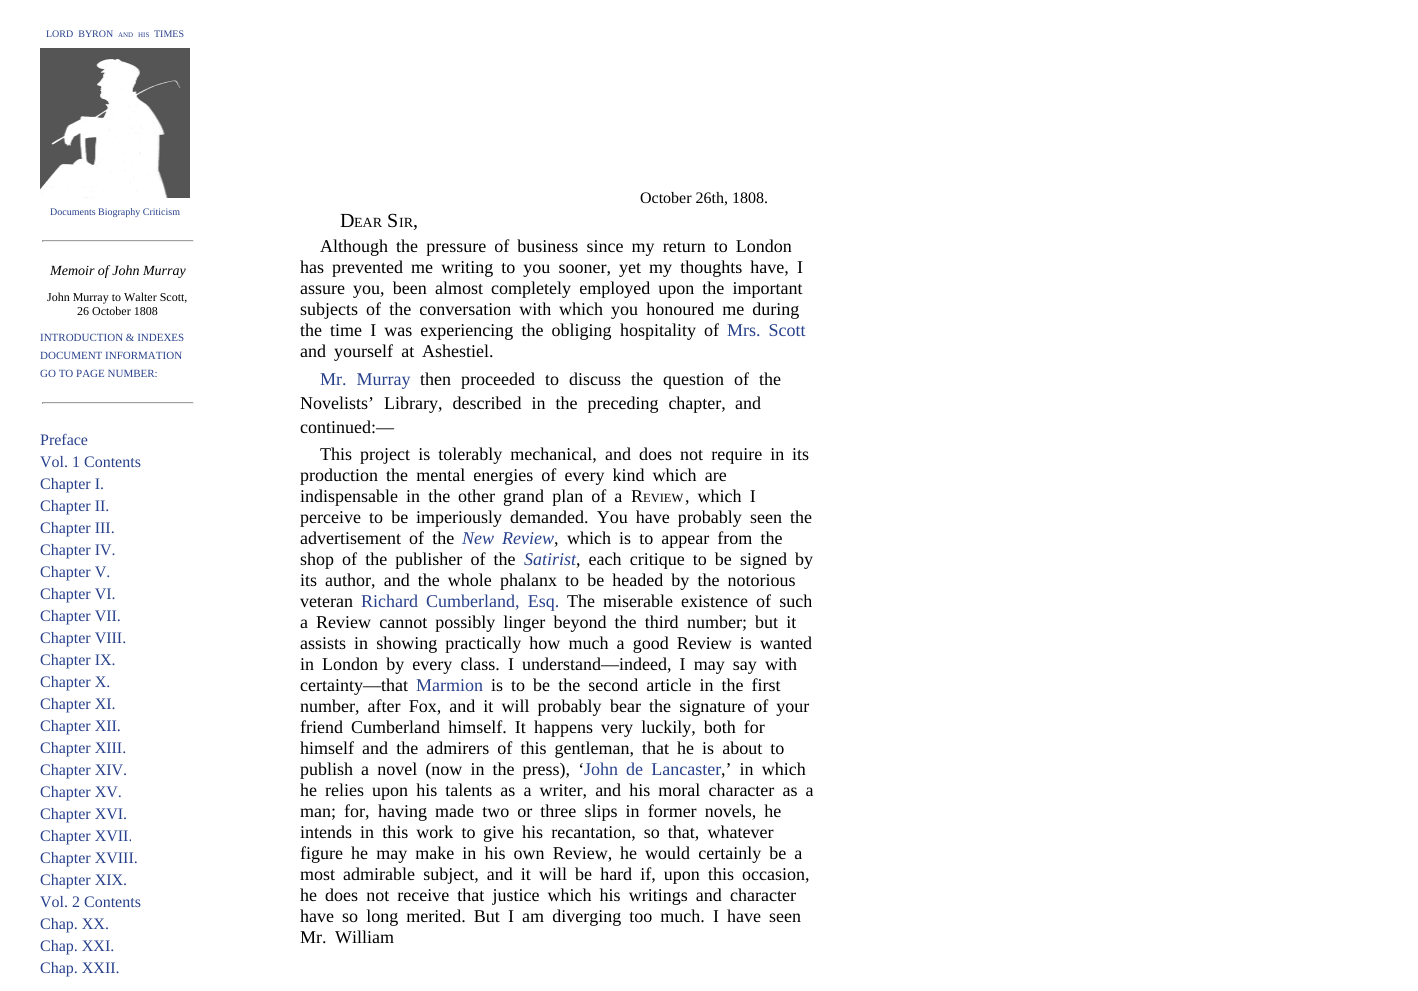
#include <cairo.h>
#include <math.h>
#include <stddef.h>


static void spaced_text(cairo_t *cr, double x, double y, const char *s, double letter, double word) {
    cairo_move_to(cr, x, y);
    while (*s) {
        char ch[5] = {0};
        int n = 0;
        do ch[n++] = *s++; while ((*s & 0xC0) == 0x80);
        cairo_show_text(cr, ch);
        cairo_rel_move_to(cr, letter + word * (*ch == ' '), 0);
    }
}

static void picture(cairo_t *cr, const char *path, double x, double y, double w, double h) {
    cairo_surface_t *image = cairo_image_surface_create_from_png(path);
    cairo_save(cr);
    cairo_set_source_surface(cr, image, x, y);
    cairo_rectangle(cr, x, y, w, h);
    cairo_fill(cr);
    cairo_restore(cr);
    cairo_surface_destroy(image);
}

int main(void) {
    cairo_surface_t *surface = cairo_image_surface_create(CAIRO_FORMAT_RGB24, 1418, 991);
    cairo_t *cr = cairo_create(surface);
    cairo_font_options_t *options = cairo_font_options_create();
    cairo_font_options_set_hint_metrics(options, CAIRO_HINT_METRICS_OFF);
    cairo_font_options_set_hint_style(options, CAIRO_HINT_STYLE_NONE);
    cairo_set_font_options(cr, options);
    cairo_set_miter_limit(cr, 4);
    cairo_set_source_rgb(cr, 1, 1, 1);
    cairo_paint(cr);
    cairo_select_font_face(cr, "Liberation Serif", CAIRO_FONT_SLANT_NORMAL, CAIRO_FONT_WEIGHT_NORMAL);
    cairo_set_font_size(cr, 10);
    cairo_set_source_rgb(cr, 0.153, 0.251, 0.545);
    cairo_move_to(cr, 46, 37);
    cairo_show_text(cr, "LORD  BYRON");
    cairo_set_font_size(cr, 7);
    cairo_move_to(cr, 118, 37);
    cairo_show_text(cr, "AND");
    cairo_move_to(cr, 138, 37);
    cairo_show_text(cr, "HIS");
    cairo_set_font_size(cr, 10);
    cairo_move_to(cr, 154, 37);
    cairo_show_text(cr, "TIMES");
    picture(cr, "img1.png", 40, 48, 150, 150);
    cairo_move_to(cr, 50, 215);
    cairo_show_text(cr, "Documents Biography Criticism");
    cairo_set_font_size(cr, 16);
    cairo_set_source_rgb(cr, 0, 0, 0);
    cairo_move_to(cr, 640, 203);
    cairo_show_text(cr, "October 26th, 1808.");
    cairo_set_font_size(cr, 20);
    cairo_move_to(cr, 340, 227);
    cairo_show_text(cr, "D");
    cairo_set_font_size(cr, 14);
    cairo_move_to(cr, 354, 227);
    cairo_show_text(cr, "EAR");
    cairo_set_font_size(cr, 20);
    cairo_move_to(cr, 387, 227);
    cairo_show_text(cr, "S");
    cairo_set_font_size(cr, 14);
    cairo_move_to(cr, 399, 227);
    cairo_show_text(cr, "IR");
    cairo_set_font_size(cr, 20);
    cairo_move_to(cr, 413, 227);
    cairo_show_text(cr, ",");
    cairo_set_source_rgb(cr, 0.624, 0.624, 0.624);
    cairo_rectangle(cr, 42, 240, 152, 1);
    cairo_fill(cr);
    cairo_set_source_rgb(cr, 0.933, 0.933, 0.933);
    cairo_rectangle(cr, 193, 240, 1, 2);
    cairo_fill(cr);
    cairo_rectangle(cr, 42, 241, 152, 1);
    cairo_fill(cr);
    cairo_set_source_rgb(cr, 0.624, 0.624, 0.624);
    cairo_rectangle(cr, 42, 240, 1, 2);
    cairo_fill(cr);
    cairo_select_font_face(cr, "Liberation Serif", CAIRO_FONT_SLANT_ITALIC, CAIRO_FONT_WEIGHT_NORMAL);
    cairo_set_font_size(cr, 14);
    cairo_set_source_rgb(cr, 0, 0, 0);
    cairo_move_to(cr, 50, 275);
    cairo_show_text(cr, "Memoir of John Murray");
    cairo_select_font_face(cr, "Liberation Serif", CAIRO_FONT_SLANT_NORMAL, CAIRO_FONT_WEIGHT_NORMAL);
    cairo_set_font_size(cr, 12);
    cairo_move_to(cr, 47, 301);
    cairo_show_text(cr, "John Murray to Walter Scott,");
    cairo_move_to(cr, 77, 315);
    cairo_show_text(cr, "26 October 1808");
    cairo_set_font_size(cr, 11);
    cairo_set_source_rgb(cr, 0.153, 0.251, 0.545);
    cairo_move_to(cr, 40, 341);
    cairo_show_text(cr, "INTRODUCTION & INDEXES");
    cairo_move_to(cr, 40, 359);
    cairo_show_text(cr, "DOCUMENT INFORMATION");
    cairo_move_to(cr, 40, 377);
    cairo_show_text(cr, "GO TO PAGE NUMBER:");
    cairo_set_source_rgb(cr, 0.624, 0.624, 0.624);
    cairo_rectangle(cr, 42, 402, 152, 1);
    cairo_fill(cr);
    cairo_set_source_rgb(cr, 0.933, 0.933, 0.933);
    cairo_rectangle(cr, 193, 402, 1, 2);
    cairo_fill(cr);
    cairo_rectangle(cr, 42, 403, 152, 1);
    cairo_fill(cr);
    cairo_set_source_rgb(cr, 0.624, 0.624, 0.624);
    cairo_rectangle(cr, 42, 402, 1, 2);
    cairo_fill(cr);
    cairo_set_font_size(cr, 16);
    cairo_set_source_rgb(cr, 0.153, 0.251, 0.545);
    cairo_move_to(cr, 40, 445);
    cairo_show_text(cr, "Preface");
    cairo_move_to(cr, 40, 467);
    cairo_show_text(cr, "Vol. 1 Contents");
    cairo_move_to(cr, 40, 489);
    cairo_show_text(cr, "Chapter I.");
    cairo_move_to(cr, 40, 511);
    cairo_show_text(cr, "Chapter II.");
    cairo_move_to(cr, 40, 533);
    cairo_show_text(cr, "Chapter III.");
    cairo_move_to(cr, 40, 555);
    cairo_show_text(cr, "Chapter IV.");
    cairo_move_to(cr, 40, 577);
    cairo_show_text(cr, "Chapter V.");
    cairo_move_to(cr, 40, 599);
    cairo_show_text(cr, "Chapter VI.");
    cairo_move_to(cr, 40, 621);
    cairo_show_text(cr, "Chapter VII.");
    cairo_move_to(cr, 40, 643);
    cairo_show_text(cr, "Chapter VIII.");
    cairo_move_to(cr, 40, 665);
    cairo_show_text(cr, "Chapter IX.");
    cairo_move_to(cr, 40, 687);
    cairo_show_text(cr, "Chapter X.");
    cairo_move_to(cr, 40, 709);
    cairo_show_text(cr, "Chapter XI.");
    cairo_move_to(cr, 40, 731);
    cairo_show_text(cr, "Chapter XII.");
    cairo_move_to(cr, 40, 753);
    cairo_show_text(cr, "Chapter XIII.");
    cairo_move_to(cr, 40, 775);
    cairo_show_text(cr, "Chapter XIV.");
    cairo_move_to(cr, 40, 797);
    cairo_show_text(cr, "Chapter XV.");
    cairo_move_to(cr, 40, 819);
    cairo_show_text(cr, "Chapter XVI.");
    cairo_move_to(cr, 40, 841);
    cairo_show_text(cr, "Chapter XVII.");
    cairo_move_to(cr, 40, 863);
    cairo_show_text(cr, "Chapter XVIII.");
    cairo_move_to(cr, 40, 885);
    cairo_show_text(cr, "Chapter XIX.");
    cairo_move_to(cr, 40, 907);
    cairo_show_text(cr, "Vol. 2 Contents");
    cairo_move_to(cr, 40, 929);
    cairo_show_text(cr, "Chap. XX.");
    cairo_move_to(cr, 40, 951);
    cairo_show_text(cr, "Chap. XXI.");
    cairo_move_to(cr, 40, 973);
    cairo_show_text(cr, "Chap. XXII.");
    cairo_set_font_size(cr, 18);
    cairo_set_source_rgb(cr, 0, 0, 0);
    spaced_text(cr, 320, 252, "Although the pressure of business since my return to London", 0, 3.6);
    cairo_move_to(cr, 300, 273);
    cairo_show_text(cr, "has");
    spaced_text(cr, 332, 273, "prevented me writing to you sooner, yet my thoughts have, I", 0, 3.6);
    spaced_text(cr, 300, 294, "assure you, been", 0, 3.6);
    spaced_text(cr, 435, 294, "almost completely employed upon the important", 0, 3.6);
    spaced_text(cr, 300, 315, "subjects of the conversation with", 0, 3.6);
    spaced_text(cr, 559, 315, "which you honoured me during", 0, 3.6);
    spaced_text(cr, 300, 336, "the time I was experiencing the obliging", 0, 3.6);
    spaced_text(cr, 620, 336, "hospitality of", 0, 3.6);
    cairo_set_source_rgb(cr, 0.153, 0.251, 0.545);
    spaced_text(cr, 727, 336, "Mrs. Scott", 0, 3.6);
    cairo_set_source_rgb(cr, 0, 0, 0);
    spaced_text(cr, 300, 357, "and yourself at", 0, 3.6);
    cairo_move_to(cr, 422, 357);
    cairo_show_text(cr, "Ashestiel.");
    cairo_set_source_rgb(cr, 0.153, 0.251, 0.545);
    spaced_text(cr, 320, 385, "Mr. Murray", 0, 5.5);
    cairo_set_source_rgb(cr, 0, 0, 0);
    spaced_text(cr, 420, 385, "then proceeded to discuss the", 0, 5.5);
    spaced_text(cr, 663, 385, "question of the", 0, 5.5);
    spaced_text(cr, 300, 409, "Novelists’ Library, described in the preceding chapter,", 0, 5.5);
    cairo_move_to(cr, 735, 409);
    cairo_show_text(cr, "and");
    cairo_move_to(cr, 300, 433);
    cairo_show_text(cr, "continued:—");
    spaced_text(cr, 320, 460, "This project is tolerably mechanical, and does not require in", 0, 3.6);
    cairo_move_to(cr, 792, 460);
    cairo_show_text(cr, "its");
    spaced_text(cr, 300, 481, "production the mental energies of every kind which are", 0, 3.6);
    spaced_text(cr, 300, 502, "indispensable in the", 0, 3.6);
    spaced_text(cr, 458, 502, "other grand plan of a", 0, 3.6);
    cairo_move_to(cr, 631, 502);
    cairo_show_text(cr, "R");
    cairo_set_font_size(cr, 12.5);
    cairo_move_to(cr, 643, 502);
    cairo_show_text(cr, "EVIEW");
    cairo_set_font_size(cr, 18);
    spaced_text(cr, 685, 502, ", which I", 0, 3.6);
    spaced_text(cr, 300, 523, "perceive to be", 0, 3.6);
    spaced_text(cr, 416, 523, "imperiously demanded. You have probably seen the", 0, 3.6);
    spaced_text(cr, 300, 544, "advertisement of the", 0, 3.6);
    cairo_select_font_face(cr, "Liberation Serif", CAIRO_FONT_SLANT_ITALIC, CAIRO_FONT_WEIGHT_NORMAL);
    cairo_set_source_rgb(cr, 0.153, 0.251, 0.545);
    spaced_text(cr, 462, 544, "New Review", 0, 3.6);
    cairo_select_font_face(cr, "Liberation Serif", CAIRO_FONT_SLANT_NORMAL, CAIRO_FONT_WEIGHT_NORMAL);
    cairo_set_source_rgb(cr, 0, 0, 0);
    cairo_move_to(cr, 554, 544);
    cairo_show_text(cr, ",");
    spaced_text(cr, 567, 544, "which is to appear from the", 0, 3.6);
    spaced_text(cr, 300, 565, "shop of the publisher of the", 0, 3.6);
    cairo_select_font_face(cr, "Liberation Serif", CAIRO_FONT_SLANT_ITALIC, CAIRO_FONT_WEIGHT_NORMAL);
    cairo_set_source_rgb(cr, 0.153, 0.251, 0.545);
    cairo_move_to(cr, 524, 565);
    cairo_show_text(cr, "Satirist");
    cairo_select_font_face(cr, "Liberation Serif", CAIRO_FONT_SLANT_NORMAL, CAIRO_FONT_WEIGHT_NORMAL);
    cairo_set_source_rgb(cr, 0, 0, 0);
    spaced_text(cr, 576, 565, ", each critique to be", 0, 3.6);
    spaced_text(cr, 740, 565, "signed by", 0, 3.6);
    spaced_text(cr, 300, 586, "its author, and the whole phalanx to be headed by the notorious", 0, 3.6);
    cairo_move_to(cr, 300, 607);
    cairo_show_text(cr, "veteran");
    cairo_set_source_rgb(cr, 0.153, 0.251, 0.545);
    spaced_text(cr, 361, 607, "Richard Cumberland, Esq.", 0, 3.6);
    cairo_set_source_rgb(cr, 0, 0, 0);
    cairo_move_to(cr, 567, 607);
    cairo_show_text(cr, "The");
    spaced_text(cr, 603, 607, "miserable existence of such", 0, 3.6);
    spaced_text(cr, 300, 628, "a Review cannot possibly linger beyond the third", 0, 3.6);
    spaced_text(cr, 687, 628, "number; but it", 0, 3.6);
    spaced_text(cr, 300, 649, "assists in showing practically how much a good Review is wanted", 0, 3.6);
    spaced_text(cr, 300, 670, "in London by every class. I understand—indeed, I may say with", 0, 3.6);
    cairo_move_to(cr, 300, 691);
    cairo_show_text(cr, "certainty—that");
    cairo_set_source_rgb(cr, 0.153, 0.251, 0.545);
    cairo_move_to(cr, 416, 691);
    cairo_show_text(cr, "Marmion");
    cairo_set_source_rgb(cr, 0, 0, 0);
    cairo_move_to(cr, 491, 691);
    cairo_show_text(cr, "is");
    spaced_text(cr, 511, 691, "to be the second article in the first", 0, 3.6);
    spaced_text(cr, 300, 712, "number, after Fox, and it will probably", 0, 3.6);
    spaced_text(cr, 610, 712, "bear the signature of your", 0, 3.6);
    spaced_text(cr, 300, 733, "friend Cumberland himself. It", 0, 3.6);
    spaced_text(cr, 534, 733, "happens very luckily, both for", 0, 3.6);
    spaced_text(cr, 300, 754, "himself and the admirers of this gentleman, that", 0, 3.6);
    spaced_text(cr, 677, 754, "he is about to", 0, 3.6);
    spaced_text(cr, 300, 775, "publish a novel (now in the press), ‘", 0, 3.6);
    cairo_set_source_rgb(cr, 0.153, 0.251, 0.545);
    spaced_text(cr, 584, 775, "John de Lancaster", 0, 3.6);
    cairo_set_source_rgb(cr, 0, 0, 0);
    spaced_text(cr, 721, 775, ",’ in which", 0, 3.6);
    cairo_move_to(cr, 300, 796);
    cairo_show_text(cr, "he");
    spaced_text(cr, 325, 796, "relies upon his talents as a writer, and his moral character as a", 0, 3.6);
    spaced_text(cr, 300, 817, "man; for,", 0, 3.6);
    spaced_text(cr, 378, 817, "having made two or three slips in former novels, he", 0, 3.6);
    spaced_text(cr, 300, 838, "intends in this work to", 0, 3.6);
    spaced_text(cr, 483, 838, "give his recantation, so that, whatever", 0, 3.6);
    spaced_text(cr, 300, 859, "figure he may make in his own Review,", 0, 3.6);
    spaced_text(cr, 620, 859, "he would certainly be a", 0, 3.6);
    spaced_text(cr, 300, 880, "most admirable subject, and it will be hard if, upon", 0, 3.6);
    spaced_text(cr, 708, 880, "this occasion,", 0, 3.6);
    spaced_text(cr, 300, 901, "he does not receive that justice which his writings and", 0, 3.6);
    cairo_move_to(cr, 730, 901);
    cairo_show_text(cr, "character");
    spaced_text(cr, 300, 922, "have so long merited. But I am diverging too much. I have seen", 0, 3.6);
    cairo_move_to(cr, 300, 943);
    cairo_show_text(cr, "Mr.");
    cairo_move_to(cr, 335, 943);
    cairo_show_text(cr, "William");
    cairo_surface_write_to_png(surface, "page.png");
    cairo_font_options_destroy(options);
    cairo_destroy(cr);
    cairo_surface_destroy(surface);
    return 0;
}
